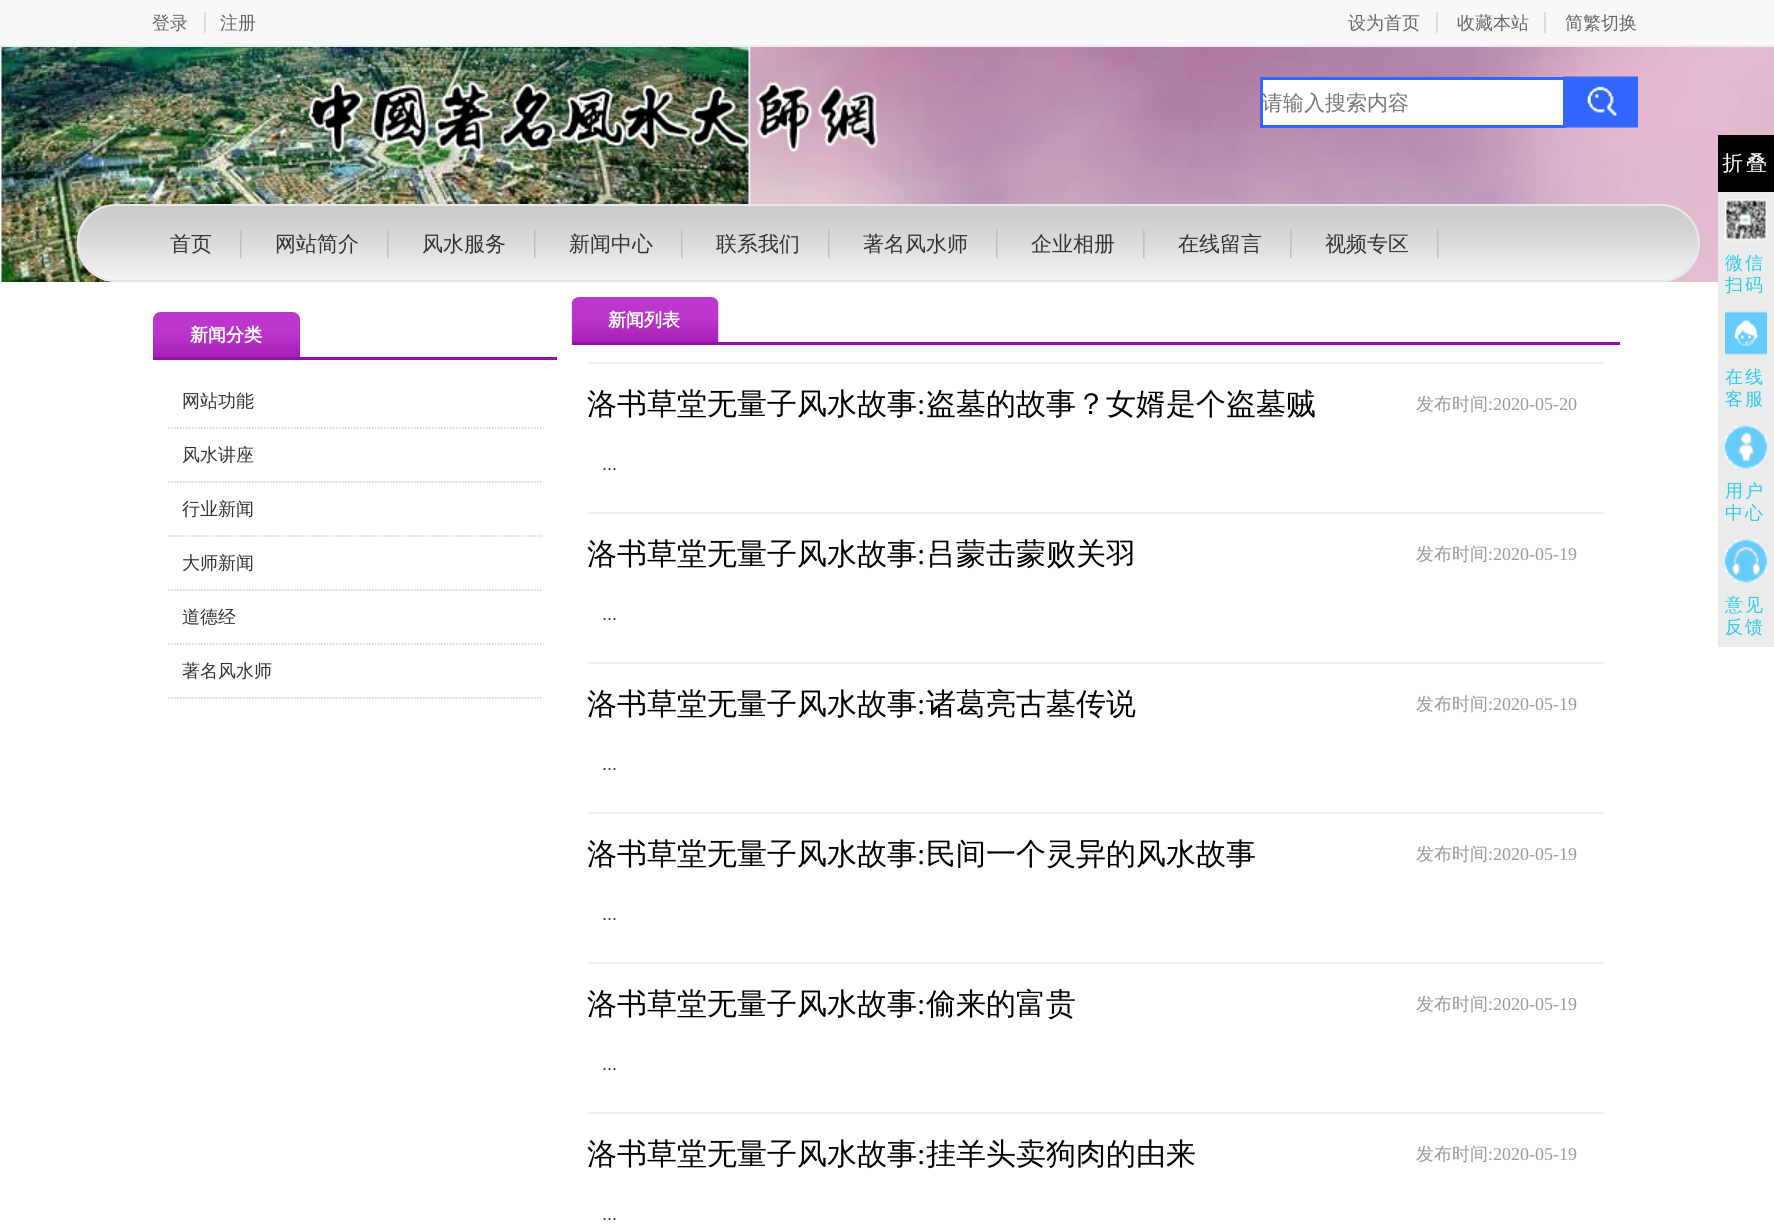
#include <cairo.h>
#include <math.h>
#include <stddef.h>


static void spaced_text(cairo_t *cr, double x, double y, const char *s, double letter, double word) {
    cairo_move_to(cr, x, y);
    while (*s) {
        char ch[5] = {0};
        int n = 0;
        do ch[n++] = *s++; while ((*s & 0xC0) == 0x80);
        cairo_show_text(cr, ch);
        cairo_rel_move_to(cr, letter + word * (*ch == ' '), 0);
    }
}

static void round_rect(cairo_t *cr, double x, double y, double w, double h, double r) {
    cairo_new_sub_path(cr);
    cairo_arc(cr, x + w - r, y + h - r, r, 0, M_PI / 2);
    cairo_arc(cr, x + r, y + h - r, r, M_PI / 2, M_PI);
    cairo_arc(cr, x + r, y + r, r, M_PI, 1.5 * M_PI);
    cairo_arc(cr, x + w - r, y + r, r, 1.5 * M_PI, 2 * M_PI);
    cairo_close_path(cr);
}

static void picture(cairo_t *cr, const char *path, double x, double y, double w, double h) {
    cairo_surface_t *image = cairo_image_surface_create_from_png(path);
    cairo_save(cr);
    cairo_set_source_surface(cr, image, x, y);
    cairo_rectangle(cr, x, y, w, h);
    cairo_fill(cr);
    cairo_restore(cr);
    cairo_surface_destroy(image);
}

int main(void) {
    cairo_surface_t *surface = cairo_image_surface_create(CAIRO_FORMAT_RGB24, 1774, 1225);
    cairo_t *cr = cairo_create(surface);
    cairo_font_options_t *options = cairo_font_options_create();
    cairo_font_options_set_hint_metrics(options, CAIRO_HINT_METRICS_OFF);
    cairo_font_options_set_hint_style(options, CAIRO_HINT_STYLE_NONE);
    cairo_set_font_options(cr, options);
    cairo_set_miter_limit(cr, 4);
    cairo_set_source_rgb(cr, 1, 1, 1);
    cairo_paint(cr);
    picture(cr, "img1.png", 0, 47, 1774, 235);
    cairo_set_source_rgb(cr, 0.969, 0.969, 0.969);
    cairo_rectangle(cr, 0, 0, 1774, 45);
    cairo_fill(cr);
    cairo_set_source_rgb(cr, 0.933, 0.933, 0.933);
    cairo_rectangle(cr, 0, 45, 1774, 2);
    cairo_fill(cr);
    cairo_select_font_face(cr, "WenQuanYi Zen Hei Medium", CAIRO_FONT_SLANT_NORMAL, CAIRO_FONT_WEIGHT_NORMAL);
    cairo_set_font_size(cr, 18);
    cairo_set_source_rgb(cr, 0.4, 0.4, 0.4);
    cairo_move_to(cr, 152, 29);
    cairo_show_text(cr, "登录");
    cairo_move_to(cr, 220, 29);
    cairo_show_text(cr, "注册");
    cairo_set_source_rgb(cr, 0.867, 0.867, 0.867);
    cairo_rectangle(cr, 204, 12, 2, 21);
    cairo_fill(cr);
    cairo_set_source_rgb(cr, 0.4, 0.4, 0.4);
    cairo_move_to(cr, 1348, 29);
    cairo_show_text(cr, "设为首页");
    cairo_set_source_rgb(cr, 0.867, 0.867, 0.867);
    cairo_rectangle(cr, 1436, 12, 2, 21);
    cairo_fill(cr);
    cairo_set_source_rgb(cr, 0.4, 0.4, 0.4);
    cairo_move_to(cr, 1457, 29);
    cairo_show_text(cr, "收藏本站");
    cairo_set_source_rgb(cr, 0.867, 0.867, 0.867);
    cairo_rectangle(cr, 1544, 12, 2, 21);
    cairo_fill(cr);
    cairo_set_source_rgb(cr, 0.4, 0.4, 0.4);
    cairo_move_to(cr, 1565, 29);
    cairo_show_text(cr, "简繁切换");
    picture(cr, "img2.png", 308, 80, 571, 74);
    cairo_set_source_rgb(cr, 1, 1, 1);
    cairo_rectangle(cr, 1261.5, 78.5, 303, 48);
    cairo_fill_preserve(cr);
    cairo_set_source_rgb(cr, 0.2, 0.4, 1);
    cairo_set_line_width(cr, 3);
    cairo_stroke(cr);
    cairo_set_font_size(cr, 21);
    cairo_set_source_rgb(cr, 0.459, 0.459, 0.459);
    cairo_move_to(cr, 1262, 110);
    cairo_show_text(cr, "请输入搜索内容");
    picture(cr, "img3.png", 1563, 76, 75, 52);
    picture(cr, "img4.png", 76, 205, 1624, 77);
    round_rect(cr, 78, 205, 1621, 76, 38);
    cairo_set_source_rgb(cr, 0.91, 0.91, 0.91);
    cairo_set_line_width(cr, 2);
    cairo_stroke(cr);
    picture(cr, "img5.png", 240, 229, 2, 30);
    cairo_set_source_rgb(cr, 0.2, 0.2, 0.2);
    cairo_move_to(cr, 170, 251);
    cairo_show_text(cr, "首页");
    picture(cr, "img6.png", 387, 229, 2, 30);
    cairo_move_to(cr, 275, 251);
    cairo_show_text(cr, "网站简介");
    picture(cr, "img5.png", 534, 229, 2, 30);
    cairo_move_to(cr, 422, 251);
    cairo_show_text(cr, "风水服务");
    picture(cr, "img5.png", 681, 229, 2, 30);
    cairo_move_to(cr, 569, 251);
    cairo_show_text(cr, "新闻中心");
    picture(cr, "img5.png", 828, 229, 2, 30);
    cairo_move_to(cr, 716, 251);
    cairo_show_text(cr, "联系我们");
    picture(cr, "img5.png", 996, 229, 2, 30);
    cairo_move_to(cr, 863, 251);
    cairo_show_text(cr, "著名风水师");
    picture(cr, "img6.png", 1143, 229, 2, 30);
    cairo_move_to(cr, 1031, 251);
    cairo_show_text(cr, "企业相册");
    picture(cr, "img6.png", 1290, 229, 2, 30);
    cairo_move_to(cr, 1178, 251);
    cairo_show_text(cr, "在线留言");
    picture(cr, "img5.png", 1437, 229, 2, 30);
    cairo_move_to(cr, 1325, 251);
    cairo_show_text(cr, "视频专区");
    cairo_set_source_rgb(cr, 0.576, 0.071, 0.639);
    cairo_rectangle(cr, 153, 357, 404, 3);
    cairo_fill(cr);
    picture(cr, "img7.png", 153, 312, 147, 45);
    cairo_select_font_face(cr, "WenQuanYi Zen Hei", CAIRO_FONT_SLANT_NORMAL, CAIRO_FONT_WEIGHT_BOLD);
    cairo_set_font_size(cr, 18);
    cairo_set_source_rgb(cr, 1, 1, 1);
    cairo_move_to(cr, 190, 341);
    cairo_show_text(cr, "新闻分类");
    cairo_new_path(cr);
    cairo_move_to(cr, 168, 428);
    cairo_line_to(cr, 541.5, 428);
    cairo_set_source_rgb(cr, 0.8, 0.8, 0.8);
    cairo_set_line_width(cr, 1.5);
    cairo_set_dash(cr, (double[]){1.5, 1.5}, 2, 0);
    cairo_stroke(cr);
    cairo_select_font_face(cr, "WenQuanYi Zen Hei Medium", CAIRO_FONT_SLANT_NORMAL, CAIRO_FONT_WEIGHT_NORMAL);
    cairo_set_source_rgb(cr, 0.2, 0.2, 0.2);
    cairo_move_to(cr, 182, 407);
    cairo_show_text(cr, "网站功能");
    cairo_new_path(cr);
    cairo_move_to(cr, 168, 482);
    cairo_line_to(cr, 541.5, 482);
    cairo_set_source_rgb(cr, 0.8, 0.8, 0.8);
    cairo_stroke(cr);
    cairo_set_source_rgb(cr, 0.2, 0.2, 0.2);
    cairo_move_to(cr, 182, 461);
    cairo_show_text(cr, "风水讲座");
    cairo_new_path(cr);
    cairo_move_to(cr, 168, 536);
    cairo_line_to(cr, 541.5, 536);
    cairo_set_source_rgb(cr, 0.8, 0.8, 0.8);
    cairo_stroke(cr);
    cairo_set_source_rgb(cr, 0.2, 0.2, 0.2);
    cairo_move_to(cr, 182, 515);
    cairo_show_text(cr, "行业新闻");
    cairo_new_path(cr);
    cairo_move_to(cr, 168, 590);
    cairo_line_to(cr, 541.5, 590);
    cairo_set_source_rgb(cr, 0.8, 0.8, 0.8);
    cairo_stroke(cr);
    cairo_set_source_rgb(cr, 0.2, 0.2, 0.2);
    cairo_move_to(cr, 182, 569);
    cairo_show_text(cr, "大师新闻");
    cairo_new_path(cr);
    cairo_move_to(cr, 168, 644);
    cairo_line_to(cr, 541.5, 644);
    cairo_set_source_rgb(cr, 0.8, 0.8, 0.8);
    cairo_stroke(cr);
    cairo_set_source_rgb(cr, 0.2, 0.2, 0.2);
    cairo_move_to(cr, 182, 623);
    cairo_show_text(cr, "道德经");
    cairo_new_path(cr);
    cairo_move_to(cr, 168, 698);
    cairo_line_to(cr, 541.5, 698);
    cairo_set_source_rgb(cr, 0.8, 0.8, 0.8);
    cairo_stroke(cr);
    cairo_set_source_rgb(cr, 0.2, 0.2, 0.2);
    cairo_move_to(cr, 182, 677);
    cairo_show_text(cr, "著名风水师");
    cairo_set_source_rgb(cr, 0.576, 0.071, 0.639);
    cairo_rectangle(cr, 572, 342, 1048, 3);
    cairo_fill(cr);
    picture(cr, "img8.png", 571, 297, 148, 45);
    cairo_select_font_face(cr, "WenQuanYi Zen Hei", CAIRO_FONT_SLANT_NORMAL, CAIRO_FONT_WEIGHT_BOLD);
    cairo_set_source_rgb(cr, 1, 1, 1);
    cairo_move_to(cr, 608, 326);
    cairo_show_text(cr, "新闻列表");
    cairo_set_source_rgb(cr, 0.937, 0.937, 0.937);
    cairo_rectangle(cr, 588, 362, 1016, 2);
    cairo_fill(cr);
    cairo_select_font_face(cr, "WenQuanYi Zen Hei Medium", CAIRO_FONT_SLANT_NORMAL, CAIRO_FONT_WEIGHT_NORMAL);
    cairo_set_font_size(cr, 30);
    cairo_set_source_rgb(cr, 0, 0, 0);
    cairo_move_to(cr, 587, 414);
    cairo_show_text(cr, "洛书草堂无量子风水故事");
    cairo_select_font_face(cr, "Liberation Serif", CAIRO_FONT_SLANT_NORMAL, CAIRO_FONT_WEIGHT_NORMAL);
    cairo_move_to(cr, 917, 414);
    cairo_show_text(cr, ":");
    cairo_select_font_face(cr, "WenQuanYi Zen Hei Medium", CAIRO_FONT_SLANT_NORMAL, CAIRO_FONT_WEIGHT_NORMAL);
    cairo_move_to(cr, 926, 414);
    cairo_show_text(cr, "盗墓的故事？女婿是个盗墓贼");
    cairo_set_font_size(cr, 18);
    cairo_set_source_rgb(cr, 0.6, 0.6, 0.6);
    cairo_move_to(cr, 1416, 410);
    cairo_show_text(cr, "发布时间");
    cairo_select_font_face(cr, "Liberation Serif", CAIRO_FONT_SLANT_NORMAL, CAIRO_FONT_WEIGHT_NORMAL);
    cairo_move_to(cr, 1488, 410);
    cairo_show_text(cr, ":2020-05-20");
    cairo_select_font_face(cr, "Liberation Sans", CAIRO_FONT_SLANT_NORMAL, CAIRO_FONT_WEIGHT_NORMAL);
    cairo_set_source_rgb(cr, 0.2, 0.2, 0.2);
    cairo_move_to(cr, 602, 470);
    cairo_show_text(cr, "...");
    cairo_set_source_rgb(cr, 0.937, 0.937, 0.937);
    cairo_rectangle(cr, 588, 512, 1016, 2);
    cairo_fill(cr);
    cairo_select_font_face(cr, "WenQuanYi Zen Hei Medium", CAIRO_FONT_SLANT_NORMAL, CAIRO_FONT_WEIGHT_NORMAL);
    cairo_set_font_size(cr, 30);
    cairo_set_source_rgb(cr, 0, 0, 0);
    cairo_move_to(cr, 587, 564);
    cairo_show_text(cr, "洛书草堂无量子风水故事");
    cairo_select_font_face(cr, "Liberation Serif", CAIRO_FONT_SLANT_NORMAL, CAIRO_FONT_WEIGHT_NORMAL);
    cairo_move_to(cr, 917, 564);
    cairo_show_text(cr, ":");
    cairo_select_font_face(cr, "WenQuanYi Zen Hei Medium", CAIRO_FONT_SLANT_NORMAL, CAIRO_FONT_WEIGHT_NORMAL);
    cairo_move_to(cr, 926, 564);
    cairo_show_text(cr, "吕蒙击蒙败关羽");
    cairo_set_font_size(cr, 18);
    cairo_set_source_rgb(cr, 0.6, 0.6, 0.6);
    cairo_move_to(cr, 1416, 560);
    cairo_show_text(cr, "发布时间");
    cairo_select_font_face(cr, "Liberation Serif", CAIRO_FONT_SLANT_NORMAL, CAIRO_FONT_WEIGHT_NORMAL);
    cairo_move_to(cr, 1488, 560);
    cairo_show_text(cr, ":2020-05-19");
    cairo_select_font_face(cr, "Liberation Sans", CAIRO_FONT_SLANT_NORMAL, CAIRO_FONT_WEIGHT_NORMAL);
    cairo_set_source_rgb(cr, 0.2, 0.2, 0.2);
    cairo_move_to(cr, 602, 620);
    cairo_show_text(cr, "...");
    cairo_set_source_rgb(cr, 0.937, 0.937, 0.937);
    cairo_rectangle(cr, 588, 662, 1016, 2);
    cairo_fill(cr);
    cairo_select_font_face(cr, "WenQuanYi Zen Hei Medium", CAIRO_FONT_SLANT_NORMAL, CAIRO_FONT_WEIGHT_NORMAL);
    cairo_set_font_size(cr, 30);
    cairo_set_source_rgb(cr, 0, 0, 0);
    cairo_move_to(cr, 587, 714);
    cairo_show_text(cr, "洛书草堂无量子风水故事");
    cairo_select_font_face(cr, "Liberation Serif", CAIRO_FONT_SLANT_NORMAL, CAIRO_FONT_WEIGHT_NORMAL);
    cairo_move_to(cr, 917, 714);
    cairo_show_text(cr, ":");
    cairo_select_font_face(cr, "WenQuanYi Zen Hei Medium", CAIRO_FONT_SLANT_NORMAL, CAIRO_FONT_WEIGHT_NORMAL);
    cairo_move_to(cr, 926, 714);
    cairo_show_text(cr, "诸葛亮古墓传说");
    cairo_set_font_size(cr, 18);
    cairo_set_source_rgb(cr, 0.6, 0.6, 0.6);
    cairo_move_to(cr, 1416, 710);
    cairo_show_text(cr, "发布时间");
    cairo_select_font_face(cr, "Liberation Serif", CAIRO_FONT_SLANT_NORMAL, CAIRO_FONT_WEIGHT_NORMAL);
    cairo_move_to(cr, 1488, 710);
    cairo_show_text(cr, ":2020-05-19");
    cairo_select_font_face(cr, "Liberation Sans", CAIRO_FONT_SLANT_NORMAL, CAIRO_FONT_WEIGHT_NORMAL);
    cairo_set_source_rgb(cr, 0.2, 0.2, 0.2);
    cairo_move_to(cr, 602, 770);
    cairo_show_text(cr, "...");
    cairo_set_source_rgb(cr, 0.937, 0.937, 0.937);
    cairo_rectangle(cr, 588, 812, 1016, 2);
    cairo_fill(cr);
    cairo_select_font_face(cr, "WenQuanYi Zen Hei Medium", CAIRO_FONT_SLANT_NORMAL, CAIRO_FONT_WEIGHT_NORMAL);
    cairo_set_font_size(cr, 30);
    cairo_set_source_rgb(cr, 0, 0, 0);
    cairo_move_to(cr, 587, 864);
    cairo_show_text(cr, "洛书草堂无量子风水故事");
    cairo_select_font_face(cr, "Liberation Serif", CAIRO_FONT_SLANT_NORMAL, CAIRO_FONT_WEIGHT_NORMAL);
    cairo_move_to(cr, 917, 864);
    cairo_show_text(cr, ":");
    cairo_select_font_face(cr, "WenQuanYi Zen Hei Medium", CAIRO_FONT_SLANT_NORMAL, CAIRO_FONT_WEIGHT_NORMAL);
    cairo_move_to(cr, 926, 864);
    cairo_show_text(cr, "民间一个灵异的风水故事");
    cairo_set_font_size(cr, 18);
    cairo_set_source_rgb(cr, 0.6, 0.6, 0.6);
    cairo_move_to(cr, 1416, 860);
    cairo_show_text(cr, "发布时间");
    cairo_select_font_face(cr, "Liberation Serif", CAIRO_FONT_SLANT_NORMAL, CAIRO_FONT_WEIGHT_NORMAL);
    cairo_move_to(cr, 1488, 860);
    cairo_show_text(cr, ":2020-05-19");
    cairo_select_font_face(cr, "Liberation Sans", CAIRO_FONT_SLANT_NORMAL, CAIRO_FONT_WEIGHT_NORMAL);
    cairo_set_source_rgb(cr, 0.2, 0.2, 0.2);
    cairo_move_to(cr, 602, 920);
    cairo_show_text(cr, "...");
    cairo_set_source_rgb(cr, 0.937, 0.937, 0.937);
    cairo_rectangle(cr, 588, 962, 1016, 2);
    cairo_fill(cr);
    cairo_select_font_face(cr, "WenQuanYi Zen Hei Medium", CAIRO_FONT_SLANT_NORMAL, CAIRO_FONT_WEIGHT_NORMAL);
    cairo_set_font_size(cr, 30);
    cairo_set_source_rgb(cr, 0, 0, 0);
    cairo_move_to(cr, 587, 1014);
    cairo_show_text(cr, "洛书草堂无量子风水故事");
    cairo_select_font_face(cr, "Liberation Serif", CAIRO_FONT_SLANT_NORMAL, CAIRO_FONT_WEIGHT_NORMAL);
    cairo_move_to(cr, 917, 1014);
    cairo_show_text(cr, ":");
    cairo_select_font_face(cr, "WenQuanYi Zen Hei Medium", CAIRO_FONT_SLANT_NORMAL, CAIRO_FONT_WEIGHT_NORMAL);
    cairo_move_to(cr, 926, 1014);
    cairo_show_text(cr, "偷来的富贵");
    cairo_set_font_size(cr, 18);
    cairo_set_source_rgb(cr, 0.6, 0.6, 0.6);
    cairo_move_to(cr, 1416, 1010);
    cairo_show_text(cr, "发布时间");
    cairo_select_font_face(cr, "Liberation Serif", CAIRO_FONT_SLANT_NORMAL, CAIRO_FONT_WEIGHT_NORMAL);
    cairo_move_to(cr, 1488, 1010);
    cairo_show_text(cr, ":2020-05-19");
    cairo_select_font_face(cr, "Liberation Sans", CAIRO_FONT_SLANT_NORMAL, CAIRO_FONT_WEIGHT_NORMAL);
    cairo_set_source_rgb(cr, 0.2, 0.2, 0.2);
    cairo_move_to(cr, 602, 1070);
    cairo_show_text(cr, "...");
    cairo_set_source_rgb(cr, 0.937, 0.937, 0.937);
    cairo_rectangle(cr, 588, 1112, 1016, 2);
    cairo_fill(cr);
    cairo_select_font_face(cr, "WenQuanYi Zen Hei Medium", CAIRO_FONT_SLANT_NORMAL, CAIRO_FONT_WEIGHT_NORMAL);
    cairo_set_font_size(cr, 30);
    cairo_set_source_rgb(cr, 0, 0, 0);
    cairo_move_to(cr, 587, 1164);
    cairo_show_text(cr, "洛书草堂无量子风水故事");
    cairo_select_font_face(cr, "Liberation Serif", CAIRO_FONT_SLANT_NORMAL, CAIRO_FONT_WEIGHT_NORMAL);
    cairo_move_to(cr, 917, 1164);
    cairo_show_text(cr, ":");
    cairo_select_font_face(cr, "WenQuanYi Zen Hei Medium", CAIRO_FONT_SLANT_NORMAL, CAIRO_FONT_WEIGHT_NORMAL);
    cairo_move_to(cr, 926, 1164);
    cairo_show_text(cr, "挂羊头卖狗肉的由来");
    cairo_set_font_size(cr, 18);
    cairo_set_source_rgb(cr, 0.6, 0.6, 0.6);
    cairo_move_to(cr, 1416, 1160);
    cairo_show_text(cr, "发布时间");
    cairo_select_font_face(cr, "Liberation Serif", CAIRO_FONT_SLANT_NORMAL, CAIRO_FONT_WEIGHT_NORMAL);
    cairo_move_to(cr, 1488, 1160);
    cairo_show_text(cr, ":2020-05-19");
    cairo_select_font_face(cr, "Liberation Sans", CAIRO_FONT_SLANT_NORMAL, CAIRO_FONT_WEIGHT_NORMAL);
    cairo_set_source_rgb(cr, 0.2, 0.2, 0.2);
    cairo_move_to(cr, 602, 1220);
    cairo_show_text(cr, "...");
    cairo_set_source_rgb(cr, 0.918, 0.918, 0.918);
    cairo_rectangle(cr, 1718, 192, 56, 455);
    cairo_fill(cr);
    cairo_set_source_rgb(cr, 0, 0, 0);
    cairo_rectangle(cr, 1718, 135, 56, 57);
    cairo_fill(cr);
    cairo_select_font_face(cr, "WenQuanYi Zen Hei Medium", CAIRO_FONT_SLANT_NORMAL, CAIRO_FONT_WEIGHT_NORMAL);
    cairo_set_font_size(cr, 21);
    cairo_set_source_rgb(cr, 1, 1, 1);
    spaced_text(cr, 1722, 170, "折叠", 3, 0);
    picture(cr, "img9.png", 1725, 199, 42, 42);
    cairo_set_font_size(cr, 18);
    cairo_set_source_rgb(cr, 0.161, 0.8, 0.937);
    spaced_text(cr, 1725, 269, "微信", 2, 0);
    spaced_text(cr, 1725, 291, "扫码", 2, 0);
    picture(cr, "img10.png", 1725, 311, 42, 44);
    spaced_text(cr, 1725, 383, "在线", 2, 0);
    spaced_text(cr, 1725, 405, "客服", 2, 0);
    picture(cr, "img11.png", 1725, 425, 42, 44);
    spaced_text(cr, 1725, 497, "用户", 2, 0);
    spaced_text(cr, 1725, 519, "中心", 2, 0);
    picture(cr, "img12.png", 1725, 539, 42, 44);
    spaced_text(cr, 1725, 611, "意见", 2, 0);
    spaced_text(cr, 1725, 633, "反馈", 2, 0);
    cairo_surface_write_to_png(surface, "page.png");
    cairo_font_options_destroy(options);
    cairo_destroy(cr);
    cairo_surface_destroy(surface);
    return 0;
}
